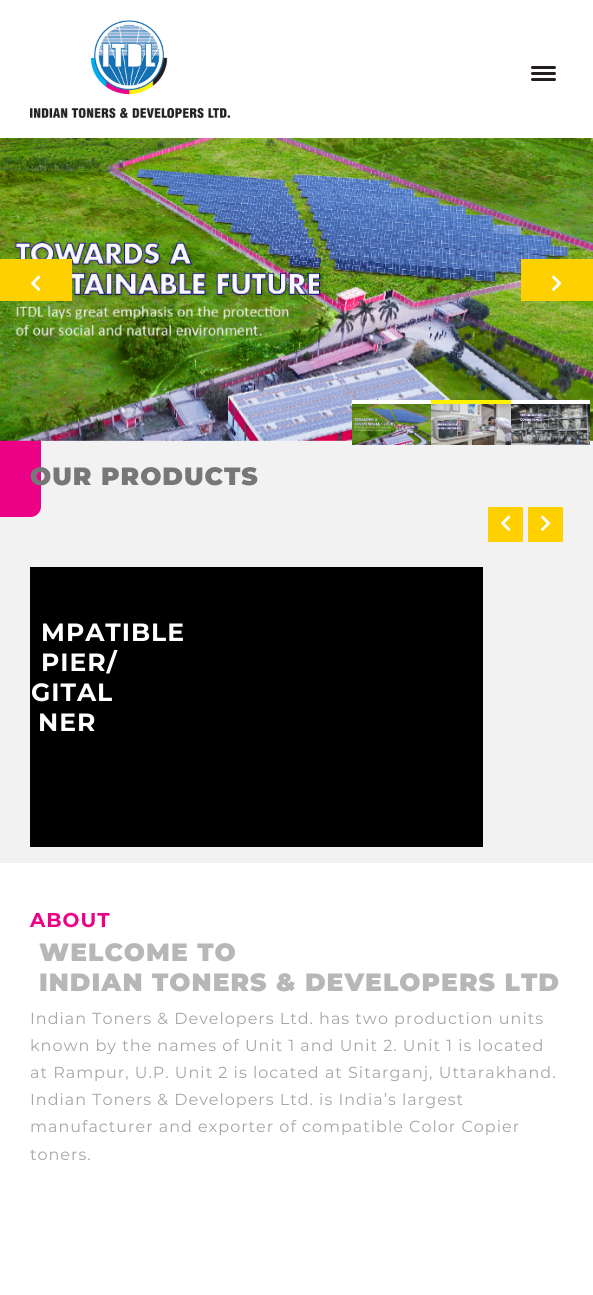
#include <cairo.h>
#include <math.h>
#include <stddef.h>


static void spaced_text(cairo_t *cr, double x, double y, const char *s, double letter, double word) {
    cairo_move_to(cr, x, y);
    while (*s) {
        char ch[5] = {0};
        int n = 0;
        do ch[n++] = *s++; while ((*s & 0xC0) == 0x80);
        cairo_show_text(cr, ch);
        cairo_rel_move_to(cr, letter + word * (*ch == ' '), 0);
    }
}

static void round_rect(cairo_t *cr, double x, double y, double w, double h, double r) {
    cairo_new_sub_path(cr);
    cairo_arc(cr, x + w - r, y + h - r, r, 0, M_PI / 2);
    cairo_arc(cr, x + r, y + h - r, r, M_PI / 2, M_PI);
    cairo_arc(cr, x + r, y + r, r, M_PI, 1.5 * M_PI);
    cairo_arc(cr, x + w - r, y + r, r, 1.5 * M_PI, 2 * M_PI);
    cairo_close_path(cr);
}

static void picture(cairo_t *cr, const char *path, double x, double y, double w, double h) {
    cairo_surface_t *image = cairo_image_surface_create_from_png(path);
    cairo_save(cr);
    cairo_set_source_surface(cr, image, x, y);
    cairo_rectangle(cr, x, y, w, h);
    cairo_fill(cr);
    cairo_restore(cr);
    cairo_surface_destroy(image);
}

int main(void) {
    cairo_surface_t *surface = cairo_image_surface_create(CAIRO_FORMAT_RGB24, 593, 1295);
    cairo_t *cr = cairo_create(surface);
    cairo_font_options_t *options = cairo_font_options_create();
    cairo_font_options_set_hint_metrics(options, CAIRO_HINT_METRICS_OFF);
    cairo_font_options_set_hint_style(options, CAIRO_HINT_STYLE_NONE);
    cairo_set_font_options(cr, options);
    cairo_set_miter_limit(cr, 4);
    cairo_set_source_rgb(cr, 1, 1, 1);
    cairo_paint(cr);
    picture(cr, "img1.png", 30, 20, 200, 98);
    cairo_set_source_rgb(cr, 0.137, 0.114, 0.114);
    round_rect(cr, 531, 66, 25, 3, 1.5);
    cairo_fill(cr);
    round_rect(cr, 531, 72, 25, 3, 1.5);
    cairo_fill(cr);
    round_rect(cr, 531, 78, 25, 3, 1.5);
    cairo_fill(cr);
    cairo_set_source_rgb(cr, 0.949, 0.949, 0.949);
    cairo_rectangle(cr, 0, 441, 593, 422);
    cairo_fill(cr);
    cairo_set_source_rgb(cr, 0.922, 0, 0.525);
    cairo_new_path(cr);
    cairo_move_to(cr, 41, 294);
    cairo_line_to(cr, 41, 507);
    cairo_curve_to(cr, 41, 512, 36, 517, 31, 517);
    cairo_line_to(cr, 0, 517);
    cairo_line_to(cr, 0, 284);
    cairo_line_to(cr, 31, 284);
    cairo_curve_to(cr, 36, 284, 41, 289, 41, 294);
    cairo_close_path(cr);
    cairo_fill(cr);
    picture(cr, "img2.png", 0, 138, 593, 303);
    cairo_set_source_rgb(cr, 1, 0.816, 0);
    cairo_rectangle(cr, 0, 259, 72, 42);
    cairo_fill(cr);
    picture(cr, "img3.png", 31, 275, 10, 16);
    cairo_rectangle(cr, 521, 259, 72, 42);
    cairo_fill(cr);
    picture(cr, "img4.png", 552, 275, 10, 16);
    cairo_set_source_rgb(cr, 1, 1, 1);
    cairo_rectangle(cr, 352, 400, 80, 4);
    cairo_fill(cr);
    picture(cr, "img5.png", 352, 404, 79, 41);
    cairo_rectangle(cr, 510, 400, 80, 4);
    cairo_fill(cr);
    cairo_set_source_rgb(cr, 1, 0.949, 0);
    cairo_rectangle(cr, 431, 400, 80, 4);
    cairo_fill(cr);
    picture(cr, "img6.png", 431, 404, 80, 41);
    picture(cr, "img7.png", 511, 404, 79, 41);
    cairo_select_font_face(cr, "Montserrat Black", CAIRO_FONT_SLANT_NORMAL, CAIRO_FONT_WEIGHT_NORMAL);
    cairo_set_font_size(cr, 25);
    cairo_set_source_rgb(cr, 0.467, 0.467, 0.467);
    spaced_text(cr, 30, 485, "OUR PRODUCTS", 1, 0);
    cairo_set_source_rgb(cr, 1, 0.816, 0);
    cairo_rectangle(cr, 488, 507, 35, 35);
    cairo_fill(cr);
    picture(cr, "img3.png", 501, 515, 10, 16);
    cairo_rectangle(cr, 528, 507, 35, 35);
    cairo_fill(cr);
    picture(cr, "img4.png", 541, 515, 10, 16);
    cairo_set_source_rgb(cr, 0, 0, 0);
    cairo_rectangle(cr, 30, 567, 453, 280);
    cairo_fill(cr);
    cairo_select_font_face(cr, "Montserrat", CAIRO_FONT_SLANT_NORMAL, CAIRO_FONT_WEIGHT_BOLD);
    cairo_set_source_rgb(cr, 1, 1, 1);
    spaced_text(cr, 41, 641, "MPATIBLE", 1, 0);
    spaced_text(cr, 41, 671, "PIER/", 1, 0);
    spaced_text(cr, 31, 701, "GITAL", 1, 0);
    spaced_text(cr, 38, 731, "NER", 1, 0);
    cairo_set_font_size(cr, 20);
    cairo_set_source_rgb(cr, 0.922, 0, 0.525);
    spaced_text(cr, 30, 927, "ABOUT", 1, 0);
    cairo_select_font_face(cr, "Montserrat Black", CAIRO_FONT_SLANT_NORMAL, CAIRO_FONT_WEIGHT_NORMAL);
    cairo_set_font_size(cr, 25);
    cairo_set_source_rgb(cr, 0.718, 0.718, 0.718);
    spaced_text(cr, 39, 961, "WELCOME TO", 1, 0);
    spaced_text(cr, 39, 991, "INDIAN TONERS & DEVELOPERS LTD", 1, 0);
    cairo_select_font_face(cr, "Montserrat", CAIRO_FONT_SLANT_NORMAL, CAIRO_FONT_WEIGHT_NORMAL);
    cairo_set_font_size(cr, 16);
    cairo_set_source_rgb(cr, 0.651, 0.651, 0.651);
    spaced_text(cr, 30, 1024, "Indian Toners & Developers Ltd. has two production units", 1, 0);
    spaced_text(cr, 30, 1051, "known by the names of Unit 1 and Unit 2. Unit 1 is located", 1, 0);
    spaced_text(cr, 30, 1078, "at Rampur, U.P. Unit 2 is located at Sitarganj, Uttarakhand.", 1, 0);
    spaced_text(cr, 30, 1105, "Indian Toners & Developers Ltd. is India’s largest", 1, 0);
    spaced_text(cr, 30, 1132, "manufacturer and exporter of compatible Color Copier", 1, 0);
    spaced_text(cr, 30, 1160, "toners.", 1, 0);
    cairo_surface_write_to_png(surface, "page.png");
    cairo_font_options_destroy(options);
    cairo_destroy(cr);
    cairo_surface_destroy(surface);
    return 0;
}
